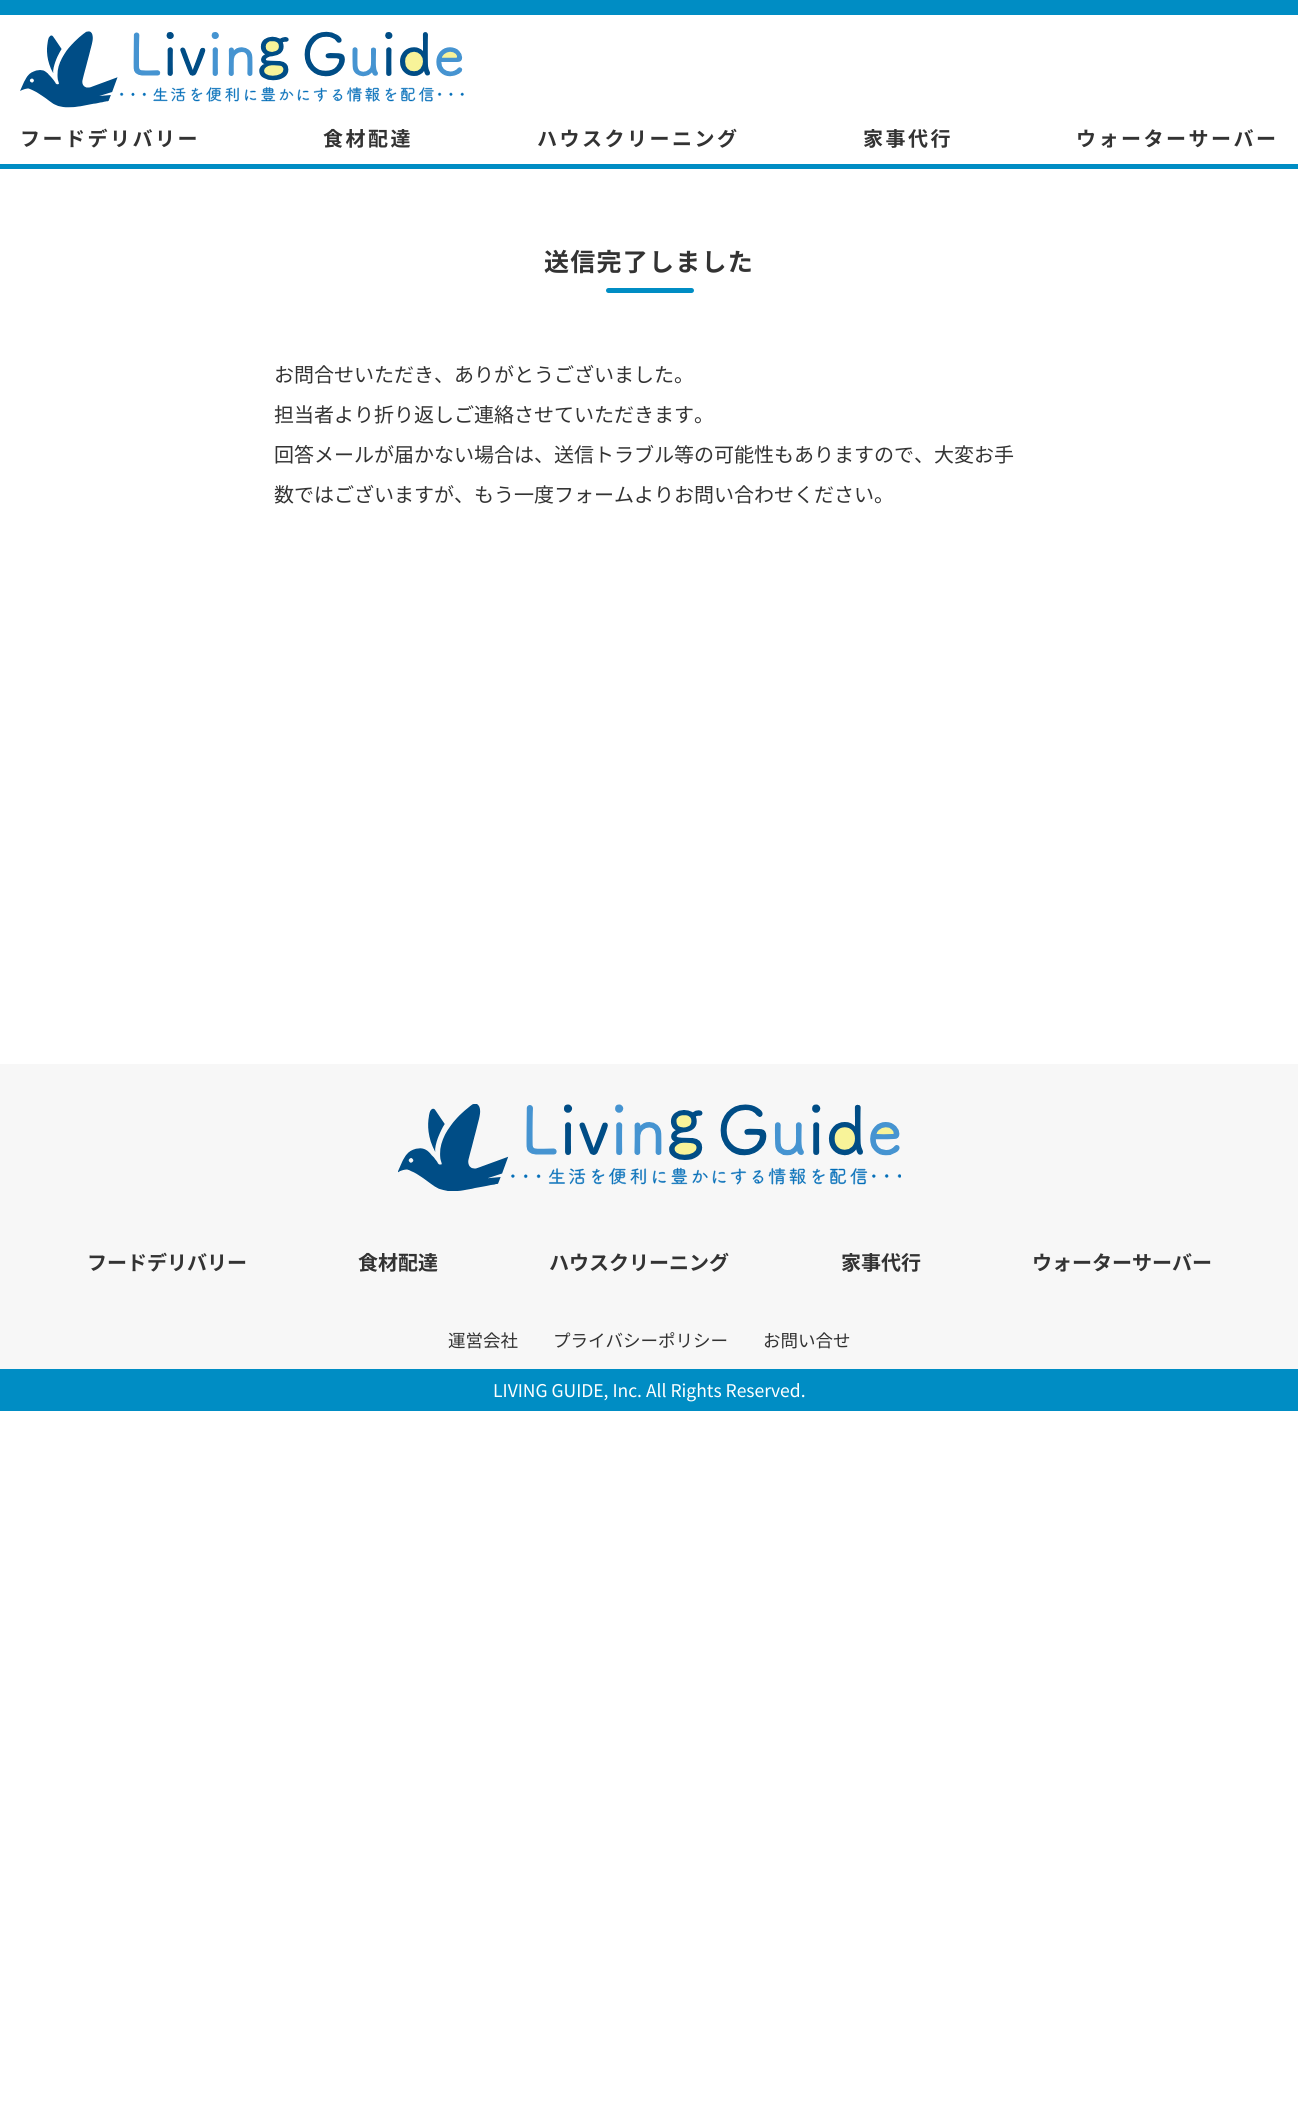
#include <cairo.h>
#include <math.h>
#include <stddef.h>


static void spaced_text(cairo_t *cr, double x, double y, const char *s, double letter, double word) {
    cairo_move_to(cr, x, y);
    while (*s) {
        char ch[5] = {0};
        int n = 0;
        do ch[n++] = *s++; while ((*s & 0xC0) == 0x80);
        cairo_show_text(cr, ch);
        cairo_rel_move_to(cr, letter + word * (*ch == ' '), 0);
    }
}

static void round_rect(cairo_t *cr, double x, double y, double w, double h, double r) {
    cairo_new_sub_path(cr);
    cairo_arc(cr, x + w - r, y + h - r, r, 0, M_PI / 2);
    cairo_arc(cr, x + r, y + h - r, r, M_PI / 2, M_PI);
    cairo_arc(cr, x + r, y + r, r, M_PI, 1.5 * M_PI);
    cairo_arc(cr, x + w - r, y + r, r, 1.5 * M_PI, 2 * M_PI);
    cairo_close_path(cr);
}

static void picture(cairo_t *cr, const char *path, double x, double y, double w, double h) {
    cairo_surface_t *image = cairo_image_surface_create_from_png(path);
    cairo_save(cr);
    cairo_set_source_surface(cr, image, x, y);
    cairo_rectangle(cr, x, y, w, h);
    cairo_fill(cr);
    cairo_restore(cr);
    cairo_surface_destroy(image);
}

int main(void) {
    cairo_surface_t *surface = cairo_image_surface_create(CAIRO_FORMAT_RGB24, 1298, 2101);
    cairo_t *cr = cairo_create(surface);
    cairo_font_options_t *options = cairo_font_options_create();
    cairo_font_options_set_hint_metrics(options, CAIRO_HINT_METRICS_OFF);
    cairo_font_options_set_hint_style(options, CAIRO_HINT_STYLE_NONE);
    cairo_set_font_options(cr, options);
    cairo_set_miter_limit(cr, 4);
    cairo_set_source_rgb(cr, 1, 1, 1);
    cairo_paint(cr);
    cairo_set_source_rgb(cr, 0, 0.553, 0.769);
    cairo_rectangle(cr, 0, 0, 1298, 15);
    cairo_fill(cr);
    cairo_rectangle(cr, 0, 164, 1298, 5);
    cairo_fill(cr);
    picture(cr, "img1.png", 20, 31, 444, 77);
    cairo_select_font_face(cr, "Noto Sans JP", CAIRO_FONT_SLANT_NORMAL, CAIRO_FONT_WEIGHT_BOLD);
    cairo_set_font_size(cr, 20);
    cairo_set_source_rgb(cr, 0.2, 0.2, 0.2);
    spaced_text(cr, 20, 146, "フードデリバリー", 2.5, 0);
    spaced_text(cr, 323, 146, "食材配達", 2.5, 0);
    spaced_text(cr, 537, 146, "ハウスクリーニング", 2.5, 0);
    spaced_text(cr, 863, 146, "家事代行", 2.5, 0);
    spaced_text(cr, 1076, 146, "ウォーターサーバー", 2.5, 0);
    cairo_set_font_size(cr, 25);
    spaced_text(cr, 544, 271, "送信完了しました", 1.25, 0);
    cairo_set_source_rgb(cr, 0, 0.553, 0.769);
    round_rect(cr, 606, 288, 88, 5, 2.5);
    cairo_fill(cr);
    cairo_select_font_face(cr, "Noto Sans JP", CAIRO_FONT_SLANT_NORMAL, CAIRO_FONT_WEIGHT_NORMAL);
    cairo_set_font_size(cr, 20);
    cairo_set_source_rgb(cr, 0.2, 0.2, 0.2);
    cairo_move_to(cr, 274, 382);
    cairo_show_text(cr, "お問合せいただき、ありがとうございました。");
    cairo_move_to(cr, 274, 422);
    cairo_show_text(cr, "担当者より折り返しご連絡させていただきます。");
    cairo_move_to(cr, 274, 462);
    cairo_show_text(cr, "回答メールが届かない場合は、送信トラブル等の可能性もありますので、大変お手");
    cairo_move_to(cr, 274, 502);
    cairo_show_text(cr, "数ではございますが、もう一度フォームよりお問い合わせください。");
    cairo_set_source_rgb(cr, 0.965, 0.965, 0.965);
    cairo_rectangle(cr, 0, 1064, 1298, 305);
    cairo_fill(cr);
    picture(cr, "img2.png", 398, 1104, 503, 87);
    cairo_select_font_face(cr, "Noto Sans JP", CAIRO_FONT_SLANT_NORMAL, CAIRO_FONT_WEIGHT_BOLD);
    cairo_set_source_rgb(cr, 0.2, 0.2, 0.2);
    cairo_move_to(cr, 87, 1270);
    cairo_show_text(cr, "フードデリバリー");
    cairo_move_to(cr, 358, 1270);
    cairo_show_text(cr, "食材配達");
    cairo_move_to(cr, 549, 1270);
    cairo_show_text(cr, "ハウスクリーニング");
    cairo_move_to(cr, 841, 1270);
    cairo_show_text(cr, "家事代行");
    cairo_move_to(cr, 1032, 1270);
    cairo_show_text(cr, "ウォーターサーバー");
    cairo_select_font_face(cr, "Noto Sans JP", CAIRO_FONT_SLANT_NORMAL, CAIRO_FONT_WEIGHT_NORMAL);
    cairo_set_font_size(cr, 17.5);
    cairo_move_to(cr, 448, 1347);
    cairo_show_text(cr, "運営会社");
    cairo_move_to(cr, 553, 1347);
    cairo_show_text(cr, "プライバシーポリシー");
    cairo_move_to(cr, 763, 1347);
    cairo_show_text(cr, "お問い合せ");
    cairo_set_source_rgb(cr, 0, 0.553, 0.769);
    cairo_rectangle(cr, 0, 1369, 1298, 42);
    cairo_fill(cr);
    cairo_set_source_rgb(cr, 1, 1, 1);
    cairo_move_to(cr, 493, 1397);
    cairo_show_text(cr, "LIVING GUIDE, Inc. All Rights Reserved.");
    cairo_surface_write_to_png(surface, "page.png");
    cairo_font_options_destroy(options);
    cairo_destroy(cr);
    cairo_surface_destroy(surface);
    return 0;
}
